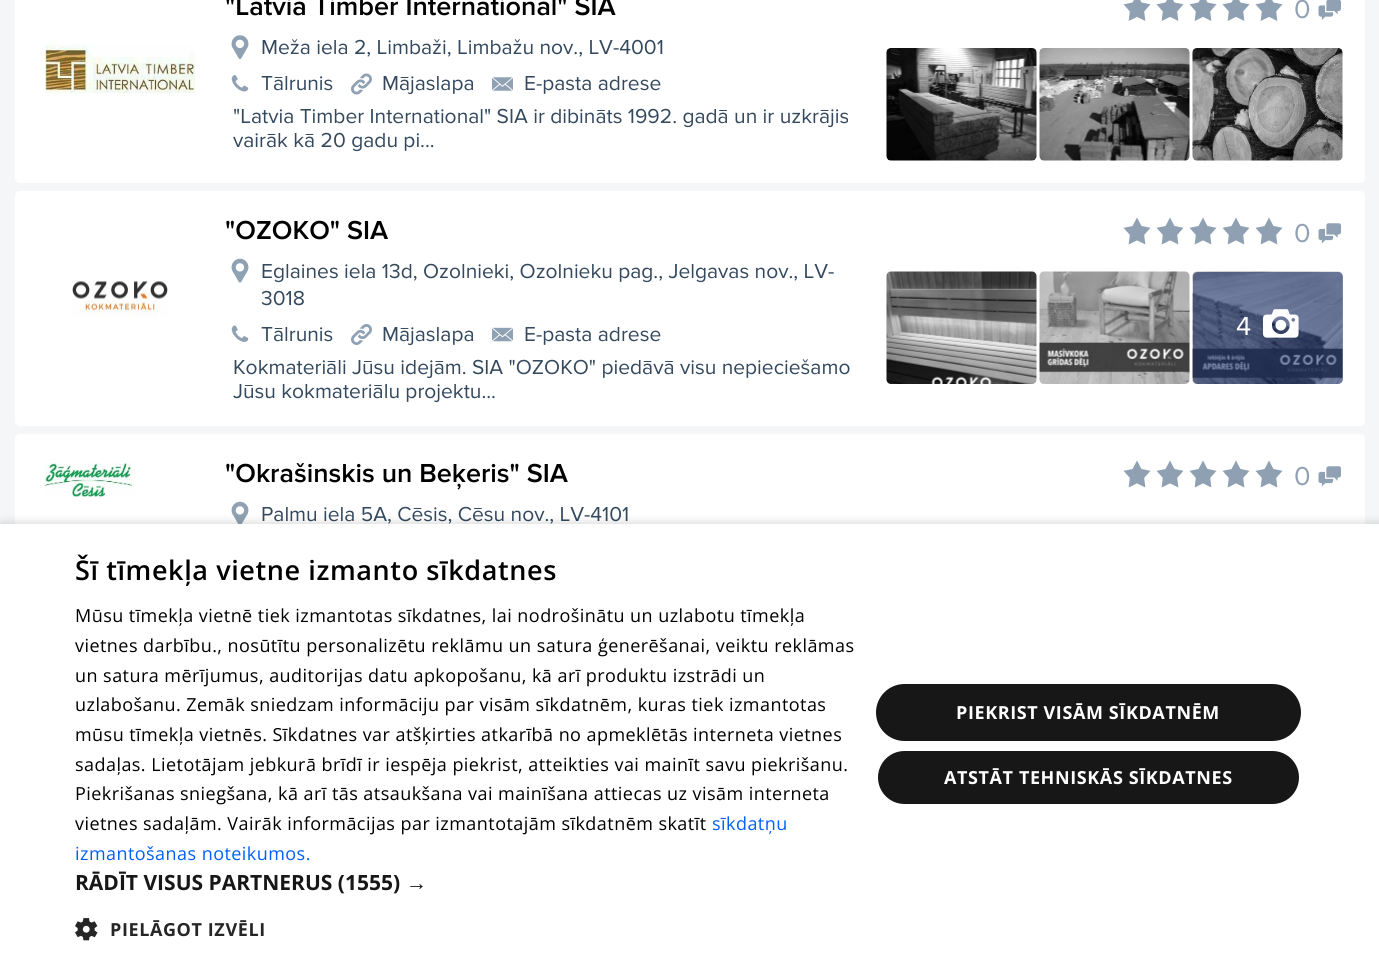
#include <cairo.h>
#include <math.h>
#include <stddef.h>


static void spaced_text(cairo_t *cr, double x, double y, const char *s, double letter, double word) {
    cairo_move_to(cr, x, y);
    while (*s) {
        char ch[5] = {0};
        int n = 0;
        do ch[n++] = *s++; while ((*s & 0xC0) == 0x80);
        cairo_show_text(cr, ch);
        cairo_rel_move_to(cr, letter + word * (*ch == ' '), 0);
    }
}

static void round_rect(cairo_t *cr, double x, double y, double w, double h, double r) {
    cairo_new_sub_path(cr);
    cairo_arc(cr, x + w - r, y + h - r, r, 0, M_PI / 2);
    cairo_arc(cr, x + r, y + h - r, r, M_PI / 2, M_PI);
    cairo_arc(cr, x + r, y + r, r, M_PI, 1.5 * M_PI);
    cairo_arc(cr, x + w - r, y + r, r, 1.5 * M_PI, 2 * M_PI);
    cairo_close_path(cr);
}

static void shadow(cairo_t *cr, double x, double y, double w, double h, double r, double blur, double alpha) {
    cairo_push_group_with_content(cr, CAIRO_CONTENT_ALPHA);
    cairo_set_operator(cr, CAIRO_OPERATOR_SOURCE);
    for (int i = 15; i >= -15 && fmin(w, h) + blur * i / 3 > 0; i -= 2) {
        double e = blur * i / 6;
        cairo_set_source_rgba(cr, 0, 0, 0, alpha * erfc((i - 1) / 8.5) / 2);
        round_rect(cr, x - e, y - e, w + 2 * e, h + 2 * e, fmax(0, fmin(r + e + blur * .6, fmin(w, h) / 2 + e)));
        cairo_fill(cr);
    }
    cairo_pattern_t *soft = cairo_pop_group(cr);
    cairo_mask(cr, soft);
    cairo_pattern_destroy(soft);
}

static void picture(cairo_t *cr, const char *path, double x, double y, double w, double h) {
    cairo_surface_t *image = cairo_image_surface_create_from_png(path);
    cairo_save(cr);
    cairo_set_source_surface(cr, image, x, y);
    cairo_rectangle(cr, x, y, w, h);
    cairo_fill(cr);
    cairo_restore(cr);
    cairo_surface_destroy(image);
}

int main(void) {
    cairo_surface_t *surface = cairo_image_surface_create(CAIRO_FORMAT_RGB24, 1379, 965);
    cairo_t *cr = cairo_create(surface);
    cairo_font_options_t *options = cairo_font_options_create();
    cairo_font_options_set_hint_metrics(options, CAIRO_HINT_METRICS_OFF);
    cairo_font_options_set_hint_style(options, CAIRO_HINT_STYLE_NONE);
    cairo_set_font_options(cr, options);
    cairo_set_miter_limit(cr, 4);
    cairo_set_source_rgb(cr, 0.957, 0.961, 0.969);
    cairo_paint(cr);
    cairo_set_source_rgb(cr, 1, 1, 1);
    round_rect(cr, 15, -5, 1350, 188, 5);
    cairo_fill(cr);
    picture(cr, "img1.png", 45, 44, 150, 50);
    cairo_select_font_face(cr, "Proxima Nova SemiBold", CAIRO_FONT_SLANT_NORMAL, CAIRO_FONT_WEIGHT_NORMAL);
    cairo_set_font_size(cr, 27);
    cairo_set_source_rgb(cr, 0, 0, 0);
    cairo_move_to(cr, 225, 15);
    cairo_show_text(cr, "\"Latvia Timber International\" SIA");
    picture(cr, "img2.png", 1123, 0, 160, 21);
    cairo_select_font_face(cr, "Proxima Nova", CAIRO_FONT_SLANT_NORMAL, CAIRO_FONT_WEIGHT_NORMAL);
    cairo_set_source_rgb(cr, 0.561, 0.631, 0.702);
    cairo_move_to(cr, 1294, 18);
    cairo_show_text(cr, "0");
    picture(cr, "img3.png", 1318, 0, 23, 20);
    picture(cr, "img4.png", 231, 35, 18, 24);
    cairo_set_font_size(cr, 21);
    cairo_set_source_rgb(cr, 0.204, 0.286, 0.369);
    cairo_move_to(cr, 261, 54);
    cairo_show_text(cr, "Meža iela 2, Limbaži, Limbažu nov., LV-4001");
    picture(cr, "img5.png", 231, 75, 18, 17);
    cairo_move_to(cr, 261, 90);
    cairo_show_text(cr, "Tālrunis");
    picture(cr, "img6.png", 351, 73, 21, 22);
    cairo_move_to(cr, 382, 90);
    cairo_show_text(cr, "Mājaslapa");
    picture(cr, "img7.png", 492, 77, 21, 14);
    cairo_move_to(cr, 524, 90);
    cairo_show_text(cr, "E-pasta adrese");
    cairo_move_to(cr, 233, 123);
    cairo_show_text(cr, "\"Latvia Timber International\" SIA ir dibināts 1992. gadā un ir uzkrājis");
    cairo_move_to(cr, 233, 147);
    cairo_show_text(cr, "vairāk kā 20 gadu pi...");
    picture(cr, "img8.png", 886, 48, 151, 113);
    picture(cr, "img9.png", 1039, 48, 151, 113);
    picture(cr, "img10.png", 1192, 48, 151, 113);
    cairo_set_source_rgb(cr, 1, 1, 1);
    round_rect(cr, 15, 191, 1350, 235, 5);
    cairo_fill(cr);
    picture(cr, "img11.png", 72, 280, 96, 37);
    cairo_select_font_face(cr, "Proxima Nova SemiBold", CAIRO_FONT_SLANT_NORMAL, CAIRO_FONT_WEIGHT_NORMAL);
    cairo_set_font_size(cr, 27);
    cairo_set_source_rgb(cr, 0, 0, 0);
    cairo_move_to(cr, 225, 239);
    cairo_show_text(cr, "\"OZOKO\" SIA");
    picture(cr, "img12.png", 1123, 217, 160, 28);
    cairo_select_font_face(cr, "Proxima Nova", CAIRO_FONT_SLANT_NORMAL, CAIRO_FONT_WEIGHT_NORMAL);
    cairo_set_source_rgb(cr, 0.561, 0.631, 0.702);
    cairo_move_to(cr, 1294, 242);
    cairo_show_text(cr, "0");
    picture(cr, "img13.png", 1318, 223, 23, 21);
    picture(cr, "img14.png", 231, 258, 18, 25);
    cairo_set_font_size(cr, 21);
    cairo_set_source_rgb(cr, 0.204, 0.286, 0.369);
    cairo_move_to(cr, 261, 278);
    cairo_show_text(cr, "Eglaines iela 13d, Ozolnieki, Ozolnieku pag., Jelgavas nov., LV-");
    cairo_move_to(cr, 261, 305);
    cairo_show_text(cr, "3018");
    picture(cr, "img15.png", 231, 325, 18, 17);
    cairo_move_to(cr, 261, 341);
    cairo_show_text(cr, "Tālrunis");
    picture(cr, "img16.png", 351, 324, 21, 21);
    cairo_move_to(cr, 382, 341);
    cairo_show_text(cr, "Mājaslapa");
    picture(cr, "img17.png", 492, 327, 21, 15);
    cairo_move_to(cr, 524, 341);
    cairo_show_text(cr, "E-pasta adrese");
    cairo_move_to(cr, 233, 374);
    cairo_show_text(cr, "Kokmateriāli Jūsu idejām. SIA \"OZOKO\" piedāvā visu nepieciešamo");
    cairo_move_to(cr, 233, 398);
    cairo_show_text(cr, "Jūsu kokmateriālu projektu...");
    picture(cr, "img18.png", 886, 271, 151, 113);
    picture(cr, "img19.png", 1039, 271, 151, 113);
    picture(cr, "img20.png", 1192, 271, 151, 113);
    cairo_set_source_rgba(cr, 0.047, 0.149, 0.416, 0.5);
    round_rect(cr, 1193, 272, 150, 112, 5);
    cairo_fill(cr);
    cairo_set_font_size(cr, 27);
    cairo_set_source_rgb(cr, 1, 1, 1);
    cairo_move_to(cr, 1236, 335);
    cairo_show_text(cr, "4");
    picture(cr, "img21.png", 1263, 309, 36, 29);
    round_rect(cr, 15, 434, 1350, 184, 5);
    cairo_fill(cr);
    picture(cr, "img22.png", 45, 463, 90, 34);
    cairo_select_font_face(cr, "Proxima Nova SemiBold", CAIRO_FONT_SLANT_NORMAL, CAIRO_FONT_WEIGHT_NORMAL);
    cairo_set_source_rgb(cr, 0, 0, 0);
    cairo_move_to(cr, 225, 482);
    cairo_show_text(cr, "\"Okrašinskis un Beķeris\" SIA");
    picture(cr, "img12.png", 1123, 460, 160, 28);
    cairo_select_font_face(cr, "Proxima Nova", CAIRO_FONT_SLANT_NORMAL, CAIRO_FONT_WEIGHT_NORMAL);
    cairo_set_source_rgb(cr, 0.561, 0.631, 0.702);
    cairo_move_to(cr, 1294, 485);
    cairo_show_text(cr, "0");
    picture(cr, "img13.png", 1318, 466, 23, 21);
    picture(cr, "img23.png", 231, 501, 18, 23);
    cairo_set_font_size(cr, 21);
    cairo_set_source_rgb(cr, 0.204, 0.286, 0.369);
    cairo_move_to(cr, 261, 521);
    cairo_show_text(cr, "Palmu iela 5A, Cēsis, Cēsu nov., LV-4101");
    cairo_set_source_rgb(cr, 0, 0, 0);
    shadow(cr, 2, 527, 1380, 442, 0, 6, 0.35);
    cairo_set_source_rgb(cr, 1, 1, 1);
    cairo_rectangle(cr, 0, 524, 1379, 441);
    cairo_fill(cr);
    cairo_select_font_face(cr, "Open Sans SemiBold", CAIRO_FONT_SLANT_NORMAL, CAIRO_FONT_WEIGHT_NORMAL);
    cairo_set_font_size(cr, 27);
    cairo_set_source_rgb(cr, 0, 0, 0);
    spaced_text(cr, 75, 580, "Šī tīmekļa vietne izmanto sīkdatnes", 0.6, 0);
    cairo_select_font_face(cr, "Open Sans", CAIRO_FONT_SLANT_NORMAL, CAIRO_FONT_WEIGHT_NORMAL);
    cairo_set_font_size(cr, 18);
    spaced_text(cr, 75, 622, "Mūsu tīmekļa vietnē tiek izmantotas sīkdatnes, lai nodrošinātu un uzlabotu tīmekļa", 0.45, 0);
    spaced_text(cr, 75, 652, "vietnes darbību., nosūtītu personalizētu reklāmu un satura ģenerēšanai, veiktu reklāmas", 0.45, 0);
    spaced_text(cr, 75, 682, "un satura mērījumus, auditorijas datu apkopošanu, kā arī produktu izstrādi un", 0.45, 0);
    spaced_text(cr, 75, 711, "uzlabošanu. Zemāk sniedzam informāciju par visām sīkdatnēm, kuras tiek izmantotas", 0.45, 0);
    spaced_text(cr, 75, 741, "mūsu tīmekļa vietnēs. Sīkdatnes var atšķirties atkarībā no apmeklētās interneta vietnes", 0.45, 0);
    spaced_text(cr, 75, 771, "sadaļas. Lietotājam jebkurā brīdī ir iespēja piekrist, atteikties vai mainīt savu piekrišanu.", 0.45, 0);
    spaced_text(cr, 75, 800, "Piekrišanas sniegšana, kā arī tās atsaukšana vai mainīšana attiecas uz visām interneta", 0.45, 0);
    spaced_text(cr, 75, 830, "vietnes sadaļām. Vairāk informācijas par izmantotajām sīkdatnēm skatīt", 0.45, 0);
    cairo_set_source_rgb(cr, 0, 0.376, 0.961);
    spaced_text(cr, 712, 830, "sīkdatņu", 0.45, 0);
    spaced_text(cr, 75, 860, "izmantošanas noteikumos.", 0.45, 0);
    cairo_select_font_face(cr, "Open Sans", CAIRO_FONT_SLANT_NORMAL, CAIRO_FONT_WEIGHT_BOLD);
    cairo_set_font_size(cr, 21);
    cairo_set_source_rgb(cr, 0.09, 0.09, 0.09);
    cairo_move_to(cr, 75, 890);
    cairo_show_text(cr, "RĀDĪT VISUS PARTNERUS (1555)");
    cairo_select_font_face(cr, "Liberation Sans", CAIRO_FONT_SLANT_NORMAL, CAIRO_FONT_WEIGHT_BOLD);
    cairo_move_to(cr, 406, 890);
    cairo_show_text(cr, "→");
    picture(cr, "img24.png", 75, 918, 23, 23);
    cairo_select_font_face(cr, "Open Sans", CAIRO_FONT_SLANT_NORMAL, CAIRO_FONT_WEIGHT_BOLD);
    cairo_set_font_size(cr, 18);
    cairo_set_source_rgb(cr, 0.149, 0.149, 0.149);
    spaced_text(cr, 110, 936, "PIELĀGOT IZVĒLI", 0.6, 0);
    cairo_set_source_rgb(cr, 0.09, 0.09, 0.09);
    round_rect(cr, 876, 684, 425, 57, 28.5);
    cairo_fill(cr);
    cairo_set_source_rgb(cr, 1, 1, 1);
    spaced_text(cr, 956, 719, "PIEKRIST VISĀM SĪKDATNĒM", 0.6, 0);
    cairo_set_source_rgb(cr, 0.09, 0.09, 0.09);
    round_rect(cr, 877, 750, 423, 55, 27.5);
    cairo_fill_preserve(cr);
    cairo_set_source_rgb(cr, 1, 1, 1);
    cairo_stroke(cr);
    spaced_text(cr, 944, 784, "ATSTĀT TEHNISKĀS SĪKDATNES", 0.6, 0);
    cairo_surface_write_to_png(surface, "page.png");
    cairo_font_options_destroy(options);
    cairo_destroy(cr);
    cairo_surface_destroy(surface);
    return 0;
}
